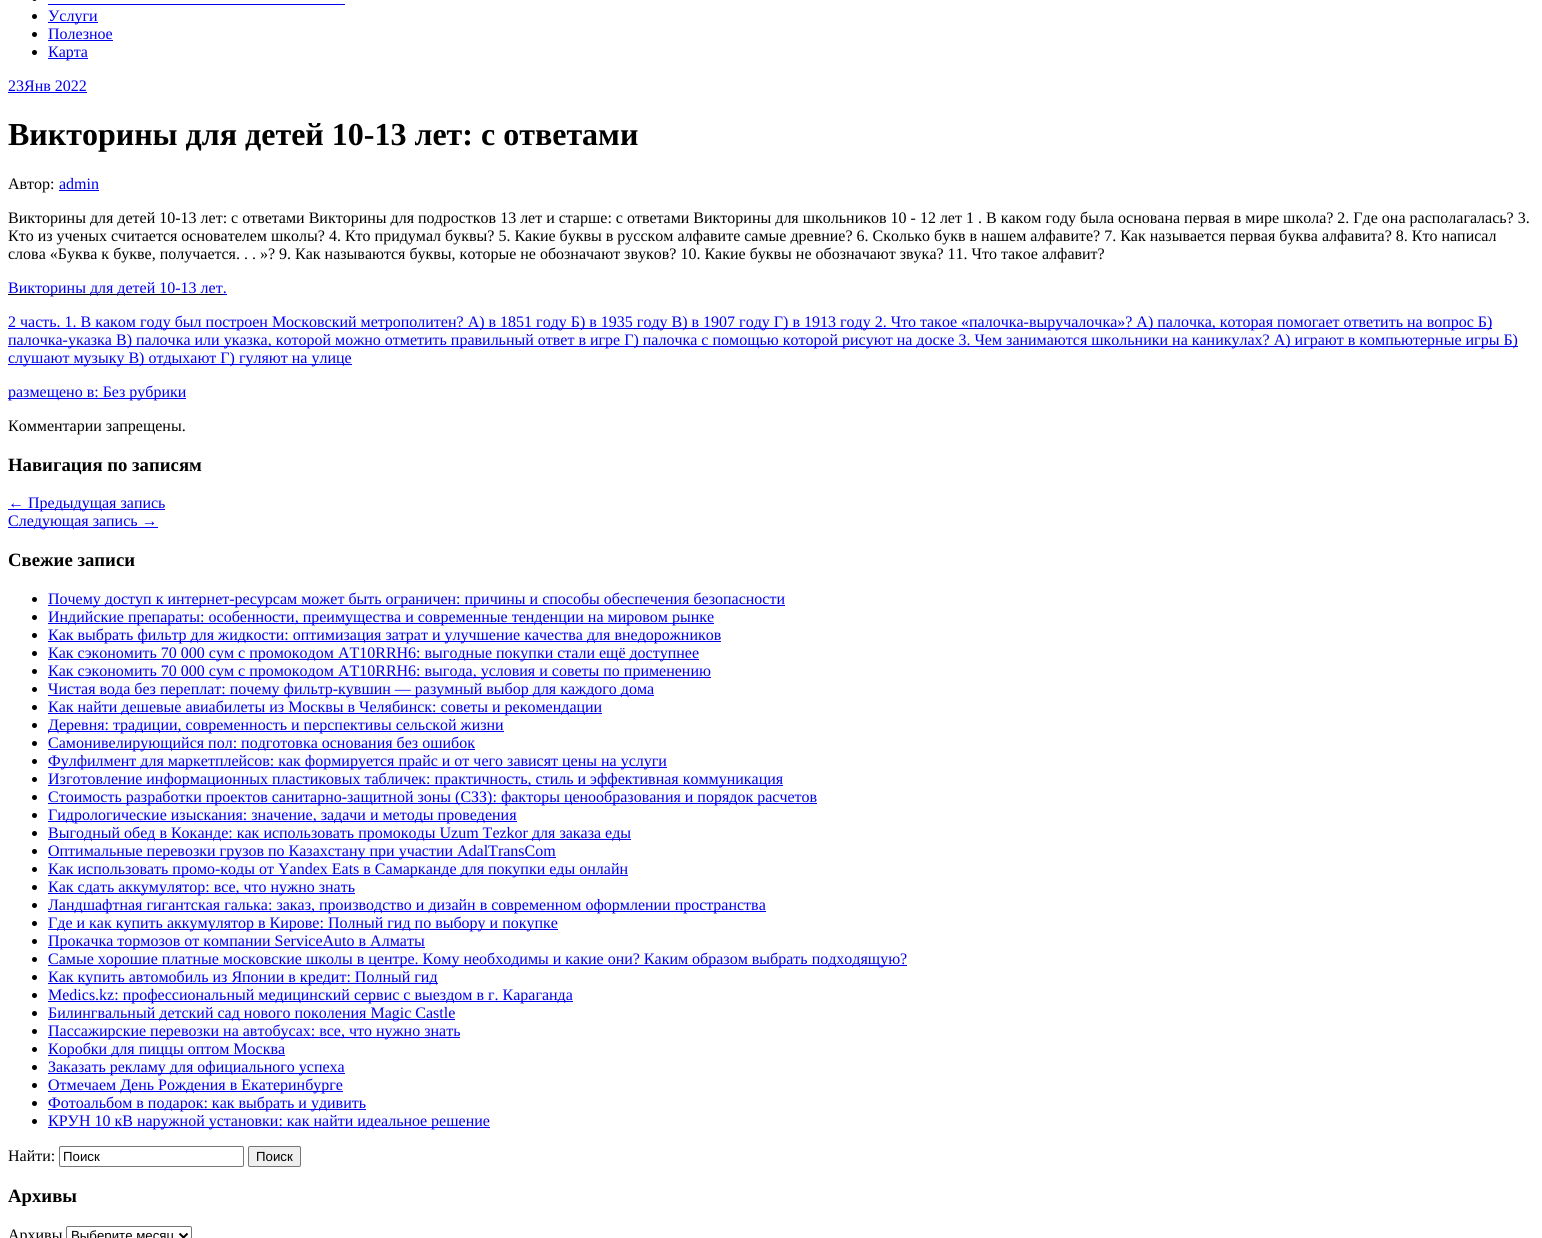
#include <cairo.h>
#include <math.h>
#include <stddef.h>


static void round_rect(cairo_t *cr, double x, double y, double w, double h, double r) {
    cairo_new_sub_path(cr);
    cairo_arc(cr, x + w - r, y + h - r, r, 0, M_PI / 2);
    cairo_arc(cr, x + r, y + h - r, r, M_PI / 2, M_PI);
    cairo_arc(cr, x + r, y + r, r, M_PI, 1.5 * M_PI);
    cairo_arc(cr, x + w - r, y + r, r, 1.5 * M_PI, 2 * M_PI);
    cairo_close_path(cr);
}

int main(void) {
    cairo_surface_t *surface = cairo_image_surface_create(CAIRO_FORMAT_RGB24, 1542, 1238);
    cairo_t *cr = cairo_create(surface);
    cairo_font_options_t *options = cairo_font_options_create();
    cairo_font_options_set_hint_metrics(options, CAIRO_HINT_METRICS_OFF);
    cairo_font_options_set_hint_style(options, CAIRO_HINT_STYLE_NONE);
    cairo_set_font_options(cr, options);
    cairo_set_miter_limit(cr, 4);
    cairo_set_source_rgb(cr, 1, 1, 1);
    cairo_paint(cr);
    cairo_set_source_rgb(cr, 0, 0, 0);
    round_rect(cr, 32, -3, 5, 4, 2.5);
    cairo_fill(cr);
    cairo_set_source_rgb(cr, 0, 0, 0.933);
    cairo_rectangle(cr, 48, 4, 297, 1);
    cairo_fill(cr);
    cairo_set_source_rgb(cr, 0, 0, 0);
    cairo_arc(cr, 34.5, 16.5, 2.5, 0, 2 * M_PI);
    cairo_fill(cr);
    cairo_set_source_rgb(cr, 0, 0, 0.933);
    cairo_rectangle(cr, 48, 22, 50, 1);
    cairo_fill(cr);
    cairo_select_font_face(cr, "Liberation Serif", CAIRO_FONT_SLANT_NORMAL, CAIRO_FONT_WEIGHT_NORMAL);
    cairo_set_font_size(cr, 16);
    cairo_move_to(cr, 48, 21);
    cairo_show_text(cr, "Услуги");
    cairo_set_source_rgb(cr, 0, 0, 0);
    cairo_new_path(cr);
    cairo_arc(cr, 34.5, 34.5, 2.5, 0, 2 * M_PI);
    cairo_fill(cr);
    cairo_set_source_rgb(cr, 0, 0, 0.933);
    cairo_move_to(cr, 48, 39);
    cairo_show_text(cr, "Полезное");
    cairo_rectangle(cr, 48, 40, 65, 1);
    cairo_fill(cr);
    cairo_set_source_rgb(cr, 0, 0, 0);
    cairo_arc(cr, 34.5, 52.5, 2.5, 0, 2 * M_PI);
    cairo_fill(cr);
    cairo_set_source_rgb(cr, 0, 0, 0.933);
    cairo_rectangle(cr, 48, 58, 40, 1);
    cairo_fill(cr);
    cairo_move_to(cr, 48, 57);
    cairo_show_text(cr, "Карта");
    cairo_move_to(cr, 8, 91);
    cairo_show_text(cr, "23Янв 2022");
    cairo_rectangle(cr, 8, 92, 79, 1);
    cairo_fill(cr);
    cairo_select_font_face(cr, "Liberation Serif", CAIRO_FONT_SLANT_NORMAL, CAIRO_FONT_WEIGHT_BOLD);
    cairo_set_font_size(cr, 32);
    cairo_set_source_rgb(cr, 0, 0, 0);
    cairo_move_to(cr, 8, 145);
    cairo_show_text(cr, "Викторины для детей 10-13 лет: с ответами");
    cairo_select_font_face(cr, "Liberation Serif", CAIRO_FONT_SLANT_NORMAL, CAIRO_FONT_WEIGHT_NORMAL);
    cairo_set_font_size(cr, 16);
    cairo_move_to(cr, 8, 189);
    cairo_show_text(cr, "Автор:");
    cairo_set_source_rgb(cr, 0, 0, 0.933);
    cairo_move_to(cr, 59, 189);
    cairo_show_text(cr, "admin");
    cairo_rectangle(cr, 59, 190, 40, 1);
    cairo_fill(cr);
    cairo_set_source_rgb(cr, 0, 0, 0);
    cairo_move_to(cr, 8, 223);
    cairo_show_text(cr, "Викторины для детей 10-13 лет: с ответами Викторины для подростков 13 лет и старше: с ответами Викторины для школьников 10 - 12 лет 1 . В каком году была основана первая в мире школа? 2. Где она располагалась? 3.");
    cairo_move_to(cr, 8, 241);
    cairo_show_text(cr, "Кто из ученых считается основателем школы? 4. Кто придумал буквы? 5. Какие буквы в русском алфавите самые древние? 6. Сколько букв в нашем алфавите? 7. Как называется первая буква алфавита? 8. Кто написал");
    cairo_move_to(cr, 8, 259);
    cairo_show_text(cr, "слова «Буква к букве, получается. . . »? 9. Как называются буквы, которые не обозначают звуков? 10. Какие буквы не обозначают звука? 11. Что такое алфавит?");
    cairo_rectangle(cr, 8, 294, 215, 1);
    cairo_fill(cr);
    cairo_set_source_rgb(cr, 0, 0, 0.933);
    cairo_move_to(cr, 8, 293);
    cairo_show_text(cr, "Викторины для детей 10-13 лет.");
    cairo_rectangle(cr, 223, 294, 4, 1);
    cairo_fill(cr);
    cairo_rectangle(cr, 8, 328, 1484, 1);
    cairo_fill(cr);
    cairo_move_to(cr, 8, 327);
    cairo_show_text(cr, "2 часть. 1. В каком году был построен Московский метрополитен? А) в 1851 году Б) в 1935 году В) в 1907 году Г) в 1913 году 2. Что такое «палочка-выручалочка»? А) палочка, которая помогает ответить на вопрос Б)");
    cairo_rectangle(cr, 8, 346, 1510, 1);
    cairo_fill(cr);
    cairo_move_to(cr, 8, 345);
    cairo_show_text(cr, "палочка-указка В) палочка или указка, которой можно отметить правильный ответ в игре Г) палочка с помощью которой рисуют на доске 3. Чем занимаются школьники на каникулах? А) играют в компьютерные игры Б)");
    cairo_rectangle(cr, 8, 364, 344, 1);
    cairo_fill(cr);
    cairo_move_to(cr, 8, 363);
    cairo_show_text(cr, "слушают музыку В) отдыхают Г) гуляют на улице");
    cairo_rectangle(cr, 8, 398, 178, 1);
    cairo_fill(cr);
    cairo_move_to(cr, 8, 397);
    cairo_show_text(cr, "размещено в: Без рубрики");
    cairo_set_source_rgb(cr, 0, 0, 0);
    cairo_move_to(cr, 8, 431);
    cairo_show_text(cr, "Комментарии запрещены.");
    cairo_select_font_face(cr, "Liberation Serif", CAIRO_FONT_SLANT_NORMAL, CAIRO_FONT_WEIGHT_BOLD);
    cairo_set_font_size(cr, 18.75);
    cairo_move_to(cr, 8, 471);
    cairo_show_text(cr, "Навигация по записям");
    cairo_set_source_rgb(cr, 0, 0, 0.933);
    cairo_rectangle(cr, 8, 509, 157, 1);
    cairo_fill(cr);
    cairo_select_font_face(cr, "Liberation Serif", CAIRO_FONT_SLANT_NORMAL, CAIRO_FONT_WEIGHT_NORMAL);
    cairo_set_font_size(cr, 16);
    cairo_move_to(cr, 8, 508);
    cairo_show_text(cr, "← Предыдущая запись");
    cairo_rectangle(cr, 8, 527, 150, 1);
    cairo_fill(cr);
    cairo_move_to(cr, 8, 526);
    cairo_show_text(cr, "Следующая запись →");
    cairo_select_font_face(cr, "Liberation Serif", CAIRO_FONT_SLANT_NORMAL, CAIRO_FONT_WEIGHT_BOLD);
    cairo_set_font_size(cr, 18.75);
    cairo_set_source_rgb(cr, 0, 0, 0);
    cairo_move_to(cr, 8, 566);
    cairo_show_text(cr, "Свежие записи");
    cairo_new_path(cr);
    cairo_arc(cr, 34.5, 599.5, 2.5, 0, 2 * M_PI);
    cairo_fill(cr);
    cairo_set_source_rgb(cr, 0, 0, 0.933);
    cairo_rectangle(cr, 48, 605, 737, 1);
    cairo_fill(cr);
    cairo_select_font_face(cr, "Liberation Serif", CAIRO_FONT_SLANT_NORMAL, CAIRO_FONT_WEIGHT_NORMAL);
    cairo_set_font_size(cr, 16);
    cairo_move_to(cr, 48, 604);
    cairo_show_text(cr, "Почему доступ к интернет-ресурсам может быть ограничен: причины и способы обеспечения безопасности");
    cairo_set_source_rgb(cr, 0, 0, 0);
    cairo_new_path(cr);
    cairo_arc(cr, 34.5, 617.5, 2.5, 0, 2 * M_PI);
    cairo_fill(cr);
    cairo_set_source_rgb(cr, 0, 0, 0.933);
    cairo_rectangle(cr, 48, 623, 666, 1);
    cairo_fill(cr);
    cairo_move_to(cr, 48, 622);
    cairo_show_text(cr, "Индийские препараты: особенности, преимущества и современные тенденции на мировом рынке");
    cairo_set_source_rgb(cr, 0, 0, 0);
    cairo_new_path(cr);
    cairo_arc(cr, 34.5, 635.5, 2.5, 0, 2 * M_PI);
    cairo_fill(cr);
    cairo_set_source_rgb(cr, 0, 0, 0.933);
    cairo_rectangle(cr, 48, 641, 673, 1);
    cairo_fill(cr);
    cairo_move_to(cr, 48, 640);
    cairo_show_text(cr, "Как выбрать фильтр для жидкости: оптимизация затрат и улучшение качества для внедорожников");
    cairo_set_source_rgb(cr, 0, 0, 0);
    cairo_new_path(cr);
    cairo_arc(cr, 34.5, 653.5, 2.5, 0, 2 * M_PI);
    cairo_fill(cr);
    cairo_set_source_rgb(cr, 0, 0, 0.933);
    cairo_rectangle(cr, 48, 659, 651, 1);
    cairo_fill(cr);
    cairo_move_to(cr, 48, 658);
    cairo_show_text(cr, "Как сэкономить 70 000 сум с промокодом AT10RRH6: выгодные покупки стали ещё доступнее");
    cairo_set_source_rgb(cr, 0, 0, 0);
    cairo_new_path(cr);
    cairo_arc(cr, 34.5, 671.5, 2.5, 0, 2 * M_PI);
    cairo_fill(cr);
    cairo_set_source_rgb(cr, 0, 0, 0.933);
    cairo_rectangle(cr, 48, 677, 663, 1);
    cairo_fill(cr);
    cairo_move_to(cr, 48, 676);
    cairo_show_text(cr, "Как сэкономить 70 000 сум с промокодом AT10RRH6: выгода, условия и советы по применению");
    cairo_set_source_rgb(cr, 0, 0, 0);
    cairo_new_path(cr);
    cairo_arc(cr, 34.5, 689.5, 2.5, 0, 2 * M_PI);
    cairo_fill(cr);
    cairo_set_source_rgb(cr, 0, 0, 0.933);
    cairo_rectangle(cr, 48, 695, 606, 1);
    cairo_fill(cr);
    cairo_move_to(cr, 48, 694);
    cairo_show_text(cr, "Чистая вода без переплат: почему фильтр-кувшин — разумный выбор для каждого дома");
    cairo_set_source_rgb(cr, 0, 0, 0);
    cairo_new_path(cr);
    cairo_arc(cr, 34.5, 707.5, 2.5, 0, 2 * M_PI);
    cairo_fill(cr);
    cairo_set_source_rgb(cr, 0, 0, 0.933);
    cairo_rectangle(cr, 48, 713, 554, 1);
    cairo_fill(cr);
    cairo_move_to(cr, 48, 712);
    cairo_show_text(cr, "Как найти дешевые авиабилеты из Москвы в Челябинск: советы и рекомендации");
    cairo_set_source_rgb(cr, 0, 0, 0);
    cairo_new_path(cr);
    cairo_arc(cr, 34.5, 725.5, 2.5, 0, 2 * M_PI);
    cairo_fill(cr);
    cairo_set_source_rgb(cr, 0, 0, 0.933);
    cairo_rectangle(cr, 48, 731, 456, 1);
    cairo_fill(cr);
    cairo_move_to(cr, 48, 730);
    cairo_show_text(cr, "Деревня: традиции, современность и перспективы сельской жизни");
    cairo_set_source_rgb(cr, 0, 0, 0);
    cairo_new_path(cr);
    cairo_arc(cr, 34.5, 743.5, 2.5, 0, 2 * M_PI);
    cairo_fill(cr);
    cairo_set_source_rgb(cr, 0, 0, 0.933);
    cairo_rectangle(cr, 48, 749, 427, 1);
    cairo_fill(cr);
    cairo_move_to(cr, 48, 748);
    cairo_show_text(cr, "Самонивелирующийся пол: подготовка основания без ошибок");
    cairo_set_source_rgb(cr, 0, 0, 0);
    cairo_new_path(cr);
    cairo_arc(cr, 34.5, 761.5, 2.5, 0, 2 * M_PI);
    cairo_fill(cr);
    cairo_set_source_rgb(cr, 0, 0, 0.933);
    cairo_rectangle(cr, 48, 767, 619, 1);
    cairo_fill(cr);
    cairo_move_to(cr, 48, 766);
    cairo_show_text(cr, "Фулфилмент для маркетплейсов: как формируется прайс и от чего зависят цены на услуги");
    cairo_set_source_rgb(cr, 0, 0, 0);
    cairo_new_path(cr);
    cairo_arc(cr, 34.5, 779.5, 2.5, 0, 2 * M_PI);
    cairo_fill(cr);
    cairo_set_source_rgb(cr, 0, 0, 0.933);
    cairo_rectangle(cr, 48, 785, 735, 1);
    cairo_fill(cr);
    cairo_move_to(cr, 48, 784);
    cairo_show_text(cr, "Изготовление информационных пластиковых табличек: практичность, стиль и эффективная коммуникация");
    cairo_set_source_rgb(cr, 0, 0, 0);
    cairo_new_path(cr);
    cairo_arc(cr, 34.5, 797.5, 2.5, 0, 2 * M_PI);
    cairo_fill(cr);
    cairo_set_source_rgb(cr, 0, 0, 0.933);
    cairo_rectangle(cr, 48, 803, 769, 1);
    cairo_fill(cr);
    cairo_move_to(cr, 48, 802);
    cairo_show_text(cr, "Стоимость разработки проектов санитарно-защитной зоны (СЗЗ): факторы ценообразования и порядок расчетов");
    cairo_set_source_rgb(cr, 0, 0, 0);
    cairo_new_path(cr);
    cairo_arc(cr, 34.5, 815.5, 2.5, 0, 2 * M_PI);
    cairo_fill(cr);
    cairo_set_source_rgb(cr, 0, 0, 0.933);
    cairo_rectangle(cr, 48, 821, 469, 1);
    cairo_fill(cr);
    cairo_move_to(cr, 48, 820);
    cairo_show_text(cr, "Гидрологические изыскания: значение, задачи и методы проведения");
    cairo_set_source_rgb(cr, 0, 0, 0);
    cairo_new_path(cr);
    cairo_arc(cr, 34.5, 833.5, 2.5, 0, 2 * M_PI);
    cairo_fill(cr);
    cairo_set_source_rgb(cr, 0, 0, 0.933);
    cairo_rectangle(cr, 48, 839, 583, 1);
    cairo_fill(cr);
    cairo_move_to(cr, 48, 838);
    cairo_show_text(cr, "Выгодный обед в Коканде: как использовать промокоды Uzum Tezkor для заказа еды");
    cairo_set_source_rgb(cr, 0, 0, 0);
    cairo_new_path(cr);
    cairo_arc(cr, 34.5, 851.5, 2.5, 0, 2 * M_PI);
    cairo_fill(cr);
    cairo_set_source_rgb(cr, 0, 0, 0.933);
    cairo_rectangle(cr, 48, 857, 508, 1);
    cairo_fill(cr);
    cairo_move_to(cr, 48, 856);
    cairo_show_text(cr, "Оптимальные перевозки грузов по Казахстану при участии AdalTransCom");
    cairo_set_source_rgb(cr, 0, 0, 0);
    cairo_new_path(cr);
    cairo_arc(cr, 34.5, 869.5, 2.5, 0, 2 * M_PI);
    cairo_fill(cr);
    cairo_set_source_rgb(cr, 0, 0, 0.933);
    cairo_rectangle(cr, 48, 875, 580, 1);
    cairo_fill(cr);
    cairo_move_to(cr, 48, 874);
    cairo_show_text(cr, "Как использовать промо-коды от Yandex Eats в Самарканде для покупки еды онлайн");
    cairo_set_source_rgb(cr, 0, 0, 0);
    cairo_new_path(cr);
    cairo_arc(cr, 34.5, 887.5, 2.5, 0, 2 * M_PI);
    cairo_fill(cr);
    cairo_set_source_rgb(cr, 0, 0, 0.933);
    cairo_rectangle(cr, 48, 893, 307, 1);
    cairo_fill(cr);
    cairo_move_to(cr, 48, 892);
    cairo_show_text(cr, "Как сдать аккумулятор: все, что нужно знать");
    cairo_set_source_rgb(cr, 0, 0, 0);
    cairo_new_path(cr);
    cairo_arc(cr, 34.5, 905.5, 2.5, 0, 2 * M_PI);
    cairo_fill(cr);
    cairo_set_source_rgb(cr, 0, 0, 0.933);
    cairo_rectangle(cr, 48, 911, 718, 1);
    cairo_fill(cr);
    cairo_move_to(cr, 48, 910);
    cairo_show_text(cr, "Ландшафтная гигантская галька: заказ, производство и дизайн в современном оформлении пространства");
    cairo_set_source_rgb(cr, 0, 0, 0);
    cairo_new_path(cr);
    cairo_arc(cr, 34.5, 923.5, 2.5, 0, 2 * M_PI);
    cairo_fill(cr);
    cairo_set_source_rgb(cr, 0, 0, 0.933);
    cairo_rectangle(cr, 48, 929, 510, 1);
    cairo_fill(cr);
    cairo_move_to(cr, 48, 928);
    cairo_show_text(cr, "Где и как купить аккумулятор в Кирове: Полный гид по выбору и покупке");
    cairo_set_source_rgb(cr, 0, 0, 0);
    cairo_new_path(cr);
    cairo_arc(cr, 34.5, 941.5, 2.5, 0, 2 * M_PI);
    cairo_fill(cr);
    cairo_set_source_rgb(cr, 0, 0, 0.933);
    cairo_rectangle(cr, 48, 947, 377, 1);
    cairo_fill(cr);
    cairo_move_to(cr, 48, 946);
    cairo_show_text(cr, "Прокачка тормозов от компании ServiceAuto в Алматы");
    cairo_set_source_rgb(cr, 0, 0, 0);
    cairo_new_path(cr);
    cairo_arc(cr, 34.5, 959.5, 2.5, 0, 2 * M_PI);
    cairo_fill(cr);
    cairo_set_source_rgb(cr, 0, 0, 0.933);
    cairo_rectangle(cr, 48, 965, 859, 1);
    cairo_fill(cr);
    cairo_move_to(cr, 48, 964);
    cairo_show_text(cr, "Самые хорошие платные московские школы в центре. Кому необходимы и какие они? Каким образом выбрать подходящую?");
    cairo_set_source_rgb(cr, 0, 0, 0);
    cairo_new_path(cr);
    cairo_arc(cr, 34.5, 977.5, 2.5, 0, 2 * M_PI);
    cairo_fill(cr);
    cairo_set_source_rgb(cr, 0, 0, 0.933);
    cairo_rectangle(cr, 48, 983, 390, 1);
    cairo_fill(cr);
    cairo_move_to(cr, 48, 982);
    cairo_show_text(cr, "Как купить автомобиль из Японии в кредит: Полный гид");
    cairo_set_source_rgb(cr, 0, 0, 0);
    cairo_new_path(cr);
    cairo_arc(cr, 34.5, 995.5, 2.5, 0, 2 * M_PI);
    cairo_fill(cr);
    cairo_set_source_rgb(cr, 0, 0, 0.933);
    cairo_rectangle(cr, 48, 1001, 525, 1);
    cairo_fill(cr);
    cairo_move_to(cr, 48, 1000);
    cairo_show_text(cr, "Medics.kz: профессиональный медицинский сервис с выездом в г. Караганда");
    cairo_set_source_rgb(cr, 0, 0, 0);
    cairo_new_path(cr);
    cairo_arc(cr, 34.5, 1013.5, 2.5, 0, 2 * M_PI);
    cairo_fill(cr);
    cairo_set_source_rgb(cr, 0, 0, 0.933);
    cairo_rectangle(cr, 48, 1019, 407, 1);
    cairo_fill(cr);
    cairo_move_to(cr, 48, 1018);
    cairo_show_text(cr, "Билингвальный детский сад нового поколения Magic Castle");
    cairo_set_source_rgb(cr, 0, 0, 0);
    cairo_new_path(cr);
    cairo_arc(cr, 34.5, 1031.5, 2.5, 0, 2 * M_PI);
    cairo_fill(cr);
    cairo_set_source_rgb(cr, 0, 0, 0.933);
    cairo_rectangle(cr, 48, 1037, 412, 1);
    cairo_fill(cr);
    cairo_move_to(cr, 48, 1036);
    cairo_show_text(cr, "Пассажирские перевозки на автобусах: все, что нужно знать");
    cairo_set_source_rgb(cr, 0, 0, 0);
    cairo_new_path(cr);
    cairo_arc(cr, 34.5, 1049.5, 2.5, 0, 2 * M_PI);
    cairo_fill(cr);
    cairo_set_source_rgb(cr, 0, 0, 0.933);
    cairo_rectangle(cr, 48, 1055, 237, 1);
    cairo_fill(cr);
    cairo_move_to(cr, 48, 1054);
    cairo_show_text(cr, "Коробки для пиццы оптом Москва");
    cairo_set_source_rgb(cr, 0, 0, 0);
    cairo_new_path(cr);
    cairo_arc(cr, 34.5, 1067.5, 2.5, 0, 2 * M_PI);
    cairo_fill(cr);
    cairo_set_source_rgb(cr, 0, 0, 0.933);
    cairo_rectangle(cr, 48, 1073, 297, 1);
    cairo_fill(cr);
    cairo_move_to(cr, 48, 1072);
    cairo_show_text(cr, "Заказать рекламу для официального успеха");
    cairo_set_source_rgb(cr, 0, 0, 0);
    cairo_new_path(cr);
    cairo_arc(cr, 34.5, 1085.5, 2.5, 0, 2 * M_PI);
    cairo_fill(cr);
    cairo_set_source_rgb(cr, 0, 0, 0.933);
    cairo_rectangle(cr, 48, 1091, 295, 1);
    cairo_fill(cr);
    cairo_move_to(cr, 48, 1090);
    cairo_show_text(cr, "Отмечаем День Рождения в Екатеринбурге");
    cairo_set_source_rgb(cr, 0, 0, 0);
    cairo_new_path(cr);
    cairo_arc(cr, 34.5, 1103.5, 2.5, 0, 2 * M_PI);
    cairo_fill(cr);
    cairo_set_source_rgb(cr, 0, 0, 0.933);
    cairo_rectangle(cr, 48, 1109, 318, 1);
    cairo_fill(cr);
    cairo_move_to(cr, 48, 1108);
    cairo_show_text(cr, "Фотоальбом в подарок: как выбрать и удивить");
    cairo_set_source_rgb(cr, 0, 0, 0);
    cairo_new_path(cr);
    cairo_arc(cr, 34.5, 1121.5, 2.5, 0, 2 * M_PI);
    cairo_fill(cr);
    cairo_set_source_rgb(cr, 0, 0, 0.933);
    cairo_rectangle(cr, 48, 1127, 442, 1);
    cairo_fill(cr);
    cairo_move_to(cr, 48, 1126);
    cairo_show_text(cr, "КРУН 10 кВ наружной установки: как найти идеальное решение");
    cairo_set_source_rgb(cr, 0, 0, 0);
    cairo_move_to(cr, 8, 1161);
    cairo_show_text(cr, "Найти:");
    round_rect(cr, 59.5, 1146.5, 184, 20, 1.5);
    cairo_set_source_rgb(cr, 0.463, 0.463, 0.463);
    cairo_set_line_width(cr, 1);
    cairo_stroke(cr);
    cairo_select_font_face(cr, "Liberation Sans", CAIRO_FONT_SLANT_NORMAL, CAIRO_FONT_WEIGHT_NORMAL);
    cairo_set_font_size(cr, 13.25);
    cairo_set_source_rgb(cr, 0, 0, 0);
    cairo_move_to(cr, 63, 1161);
    cairo_show_text(cr, "Поиск");
    cairo_set_source_rgb(cr, 0.937, 0.937, 0.937);
    round_rect(cr, 248.5, 1146.5, 52, 20, 1.5);
    cairo_fill_preserve(cr);
    cairo_set_source_rgb(cr, 0.463, 0.463, 0.463);
    cairo_stroke(cr);
    cairo_set_source_rgb(cr, 0, 0, 0);
    cairo_move_to(cr, 256, 1161);
    cairo_show_text(cr, "Поиск");
    cairo_select_font_face(cr, "Liberation Serif", CAIRO_FONT_SLANT_NORMAL, CAIRO_FONT_WEIGHT_BOLD);
    cairo_set_font_size(cr, 18.75);
    cairo_move_to(cr, 8, 1202);
    cairo_show_text(cr, "Архивы");
    cairo_select_font_face(cr, "Liberation Serif", CAIRO_FONT_SLANT_NORMAL, CAIRO_FONT_WEIGHT_NORMAL);
    cairo_set_font_size(cr, 16);
    cairo_move_to(cr, 8, 1240);
    cairo_show_text(cr, "Архивы");
    round_rect(cr, 66.5, 1226.5, 125, 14, 1.5);
    cairo_set_source_rgb(cr, 0.463, 0.463, 0.463);
    cairo_stroke(cr);
    cairo_new_path(cr);
    cairo_move_to(cr, 179.5, 1233.5);
    cairo_line_to(cr, 183.5, 1237.5);
    cairo_line_to(cr, 187.5, 1233.5);
    cairo_set_source_rgb(cr, 0, 0, 0);
    cairo_set_line_width(cr, 2);
    cairo_stroke(cr);
    cairo_select_font_face(cr, "Liberation Sans", CAIRO_FONT_SLANT_NORMAL, CAIRO_FONT_WEIGHT_NORMAL);
    cairo_set_font_size(cr, 13.25);
    cairo_move_to(cr, 71, 1240);
    cairo_show_text(cr, "Выберите месяц");
    cairo_surface_write_to_png(surface, "page.png");
    cairo_font_options_destroy(options);
    cairo_destroy(cr);
    cairo_surface_destroy(surface);
    return 0;
}
